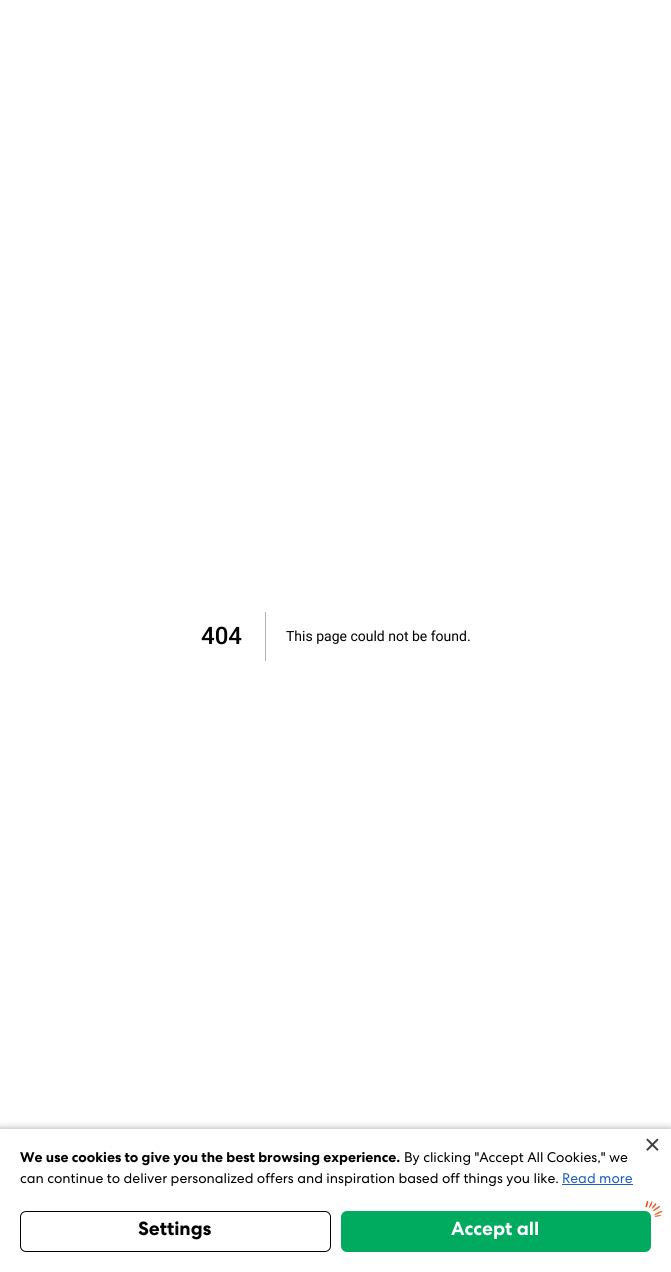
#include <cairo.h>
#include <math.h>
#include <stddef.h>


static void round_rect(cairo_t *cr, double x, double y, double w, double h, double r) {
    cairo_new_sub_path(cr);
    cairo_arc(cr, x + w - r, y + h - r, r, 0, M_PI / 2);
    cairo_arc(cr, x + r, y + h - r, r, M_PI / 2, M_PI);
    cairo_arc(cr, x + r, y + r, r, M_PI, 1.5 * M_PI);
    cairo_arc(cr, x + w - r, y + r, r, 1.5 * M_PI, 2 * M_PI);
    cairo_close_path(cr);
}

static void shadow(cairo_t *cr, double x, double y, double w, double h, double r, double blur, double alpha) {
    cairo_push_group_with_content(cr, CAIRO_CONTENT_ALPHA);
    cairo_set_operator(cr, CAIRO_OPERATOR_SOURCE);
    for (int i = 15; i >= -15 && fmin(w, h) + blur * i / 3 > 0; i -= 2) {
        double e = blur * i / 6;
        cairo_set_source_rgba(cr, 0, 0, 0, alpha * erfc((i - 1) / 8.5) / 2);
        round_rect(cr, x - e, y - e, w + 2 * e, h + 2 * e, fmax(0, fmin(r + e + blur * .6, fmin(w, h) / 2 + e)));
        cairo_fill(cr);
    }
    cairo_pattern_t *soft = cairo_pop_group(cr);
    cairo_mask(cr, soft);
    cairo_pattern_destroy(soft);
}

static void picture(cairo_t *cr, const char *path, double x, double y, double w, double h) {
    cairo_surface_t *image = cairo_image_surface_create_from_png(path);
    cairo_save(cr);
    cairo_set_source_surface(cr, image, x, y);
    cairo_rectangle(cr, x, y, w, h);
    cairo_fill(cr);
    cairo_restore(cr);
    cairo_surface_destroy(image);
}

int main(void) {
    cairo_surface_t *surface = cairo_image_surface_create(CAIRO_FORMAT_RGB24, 671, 1272);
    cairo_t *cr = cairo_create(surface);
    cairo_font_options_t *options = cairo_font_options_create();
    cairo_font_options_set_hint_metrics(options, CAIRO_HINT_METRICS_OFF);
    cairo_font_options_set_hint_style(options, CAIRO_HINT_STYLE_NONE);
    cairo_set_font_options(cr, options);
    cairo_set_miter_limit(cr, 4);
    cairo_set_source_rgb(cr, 1, 1, 1);
    cairo_paint(cr);
    cairo_set_source_rgb(cr, 0.702, 0.702, 0.702);
    cairo_rectangle(cr, 265, 612, 1, 49);
    cairo_fill(cr);
    cairo_select_font_face(cr, "Roboto Medium", CAIRO_FONT_SLANT_NORMAL, CAIRO_FONT_WEIGHT_NORMAL);
    cairo_set_font_size(cr, 24);
    cairo_set_source_rgb(cr, 0, 0, 0);
    cairo_move_to(cr, 201, 644);
    cairo_show_text(cr, "404");
    cairo_select_font_face(cr, "Roboto", CAIRO_FONT_SLANT_NORMAL, CAIRO_FONT_WEIGHT_NORMAL);
    cairo_set_font_size(cr, 14);
    cairo_move_to(cr, 286, 641);
    cairo_show_text(cr, "This page could not be found.");
    cairo_save(cr);
    cairo_rectangle(cr, 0, 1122, 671, 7);
    cairo_clip(cr);
    cairo_set_source_rgb(cr, 0, 0, 0);
    shadow(cr, 0, 1131, 671, 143, 0, 5, 0.5);
    cairo_restore(cr);
    cairo_select_font_face(cr, "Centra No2", CAIRO_FONT_SLANT_NORMAL, CAIRO_FONT_WEIGHT_NORMAL);
    cairo_set_font_size(cr, 28);
    cairo_set_source_rgb(cr, 0.251, 0.251, 0.251);
    cairo_move_to(cr, 644, 1154);
    cairo_show_text(cr, "×");
    cairo_select_font_face(cr, "Centra No2", CAIRO_FONT_SLANT_NORMAL, CAIRO_FONT_WEIGHT_BOLD);
    cairo_set_font_size(cr, 14);
    cairo_set_source_rgb(cr, 0, 0, 0);
    cairo_move_to(cr, 20, 1162);
    cairo_show_text(cr, "We use cookies to give you the best browsing experience.");
    cairo_select_font_face(cr, "Centra No2", CAIRO_FONT_SLANT_NORMAL, CAIRO_FONT_WEIGHT_NORMAL);
    cairo_move_to(cr, 404, 1162);
    cairo_show_text(cr, "By clicking \"Accept All Cookies,\" we");
    cairo_move_to(cr, 20, 1183);
    cairo_show_text(cr, "can continue to deliver personalized offers and inspiration based off things you like.");
    cairo_set_source_rgb(cr, 0.114, 0.373, 0.749);
    cairo_move_to(cr, 562, 1183);
    cairo_show_text(cr, "Read more");
    cairo_rectangle(cr, 562, 1184, 71, 1);
    cairo_fill(cr);
    round_rect(cr, 20.5, 1211.5, 310, 40, 5.5);
    cairo_set_source_rgb(cr, 0, 0, 0);
    cairo_set_line_width(cr, 1);
    cairo_stroke(cr);
    cairo_select_font_face(cr, "Centra No2", CAIRO_FONT_SLANT_NORMAL, CAIRO_FONT_WEIGHT_BOLD);
    cairo_set_font_size(cr, 19);
    cairo_move_to(cr, 138, 1235);
    cairo_show_text(cr, "Settings");
    cairo_set_source_rgb(cr, 0, 0.671, 0.373);
    round_rect(cr, 341, 1211, 310, 41, 6);
    cairo_fill(cr);
    picture(cr, "img1.png", 645, 1200, 18, 17);
    cairo_set_source_rgb(cr, 1, 1, 1);
    cairo_move_to(cr, 451, 1235);
    cairo_show_text(cr, "Accept all");
    cairo_surface_write_to_png(surface, "page.png");
    cairo_font_options_destroy(options);
    cairo_destroy(cr);
    cairo_surface_destroy(surface);
    return 0;
}
